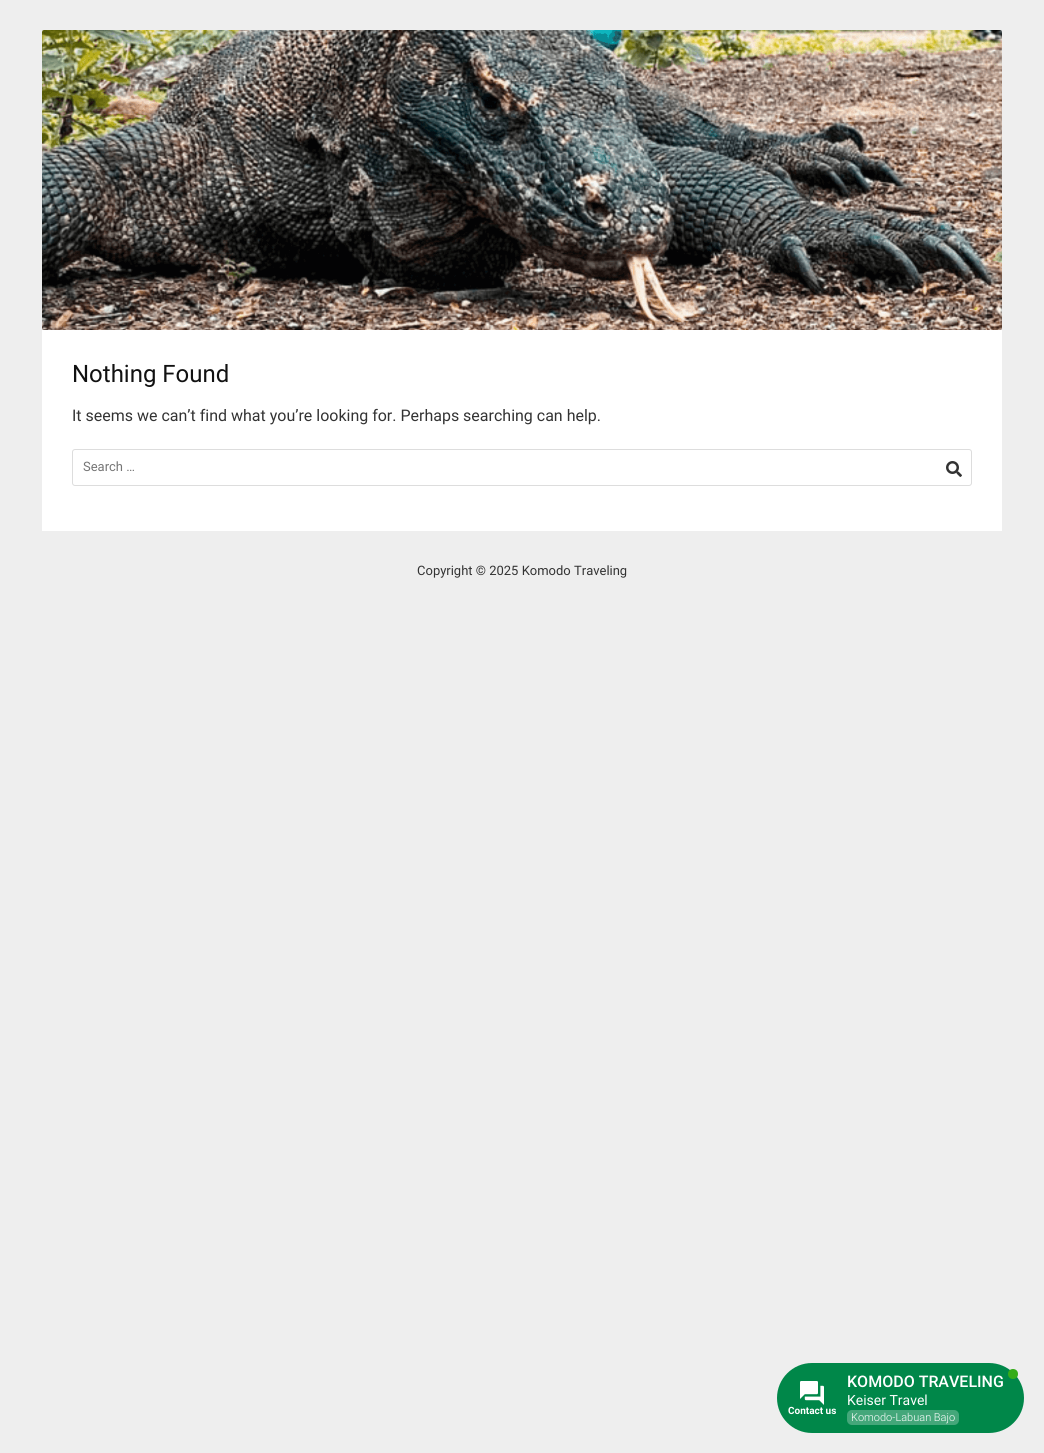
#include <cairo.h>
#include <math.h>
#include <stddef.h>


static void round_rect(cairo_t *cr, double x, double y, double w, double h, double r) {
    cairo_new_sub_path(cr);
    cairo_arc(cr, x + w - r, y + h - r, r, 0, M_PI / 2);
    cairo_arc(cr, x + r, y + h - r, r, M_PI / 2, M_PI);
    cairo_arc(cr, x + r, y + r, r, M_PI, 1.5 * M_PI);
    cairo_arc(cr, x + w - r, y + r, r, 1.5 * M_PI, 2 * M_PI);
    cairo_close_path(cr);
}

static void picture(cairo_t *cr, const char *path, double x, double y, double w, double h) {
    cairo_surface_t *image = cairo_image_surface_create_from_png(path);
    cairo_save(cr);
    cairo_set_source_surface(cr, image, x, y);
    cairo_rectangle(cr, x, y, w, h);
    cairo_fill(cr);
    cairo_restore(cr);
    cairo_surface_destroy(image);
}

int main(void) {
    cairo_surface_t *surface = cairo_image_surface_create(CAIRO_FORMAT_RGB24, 1044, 1453);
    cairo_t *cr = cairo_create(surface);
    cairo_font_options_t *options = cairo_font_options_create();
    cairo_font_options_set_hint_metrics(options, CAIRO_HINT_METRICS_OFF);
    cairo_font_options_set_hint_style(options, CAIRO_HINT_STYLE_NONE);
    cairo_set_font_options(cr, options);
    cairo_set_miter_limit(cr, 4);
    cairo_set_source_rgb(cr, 0.933, 0.933, 0.933);
    cairo_paint(cr);
    picture(cr, "img1.png", 42, 30, 960, 300);
    cairo_set_source_rgb(cr, 1, 1, 1);
    cairo_rectangle(cr, 42, 330, 960, 201);
    cairo_fill(cr);
    cairo_select_font_face(cr, "Roboto", CAIRO_FONT_SLANT_NORMAL, CAIRO_FONT_WEIGHT_NORMAL);
    cairo_set_font_size(cr, 24);
    cairo_set_source_rgb(cr, 0.067, 0.067, 0.067);
    cairo_move_to(cr, 72, 382);
    cairo_show_text(cr, "Nothing Found");
    cairo_set_font_size(cr, 16);
    cairo_set_source_rgb(cr, 0.2, 0.2, 0.2);
    cairo_move_to(cr, 72, 421);
    cairo_show_text(cr, "It seems we can’t find what you’re looking for. Perhaps searching can help.");
    round_rect(cr, 72.5, 449.5, 899, 36, 2.5);
    cairo_set_source_rgb(cr, 0.867, 0.867, 0.867);
    cairo_set_line_width(cr, 1);
    cairo_stroke(cr);
    cairo_set_font_size(cr, 13);
    cairo_set_source_rgb(cr, 0.459, 0.459, 0.459);
    cairo_move_to(cr, 83, 471);
    cairo_show_text(cr, "Search …");
    picture(cr, "img2.png", 946, 461, 16, 16);
    cairo_set_source_rgb(cr, 0.2, 0.2, 0.2);
    cairo_move_to(cr, 417, 575);
    cairo_show_text(cr, "Copyright © 2025 Komodo Traveling");
    cairo_set_source_rgb(cr, 0, 0.529, 0.286);
    round_rect(cr, 777, 1363, 247, 70, 35);
    cairo_fill(cr);
    cairo_set_source_rgb(cr, 0.208, 0.675, 0.098);
    cairo_arc(cr, 1013, 1374, 5, 0, 2 * M_PI);
    cairo_fill(cr);
    picture(cr, "img3.png", 800, 1381, 24, 24);
    cairo_select_font_face(cr, "Roboto", CAIRO_FONT_SLANT_NORMAL, CAIRO_FONT_WEIGHT_BOLD);
    cairo_set_font_size(cr, 10);
    cairo_set_source_rgb(cr, 1, 1, 1);
    cairo_move_to(cr, 788, 1414);
    cairo_show_text(cr, "Contact us");
    cairo_select_font_face(cr, "Roboto Medium", CAIRO_FONT_SLANT_NORMAL, CAIRO_FONT_WEIGHT_NORMAL);
    cairo_set_font_size(cr, 16);
    cairo_move_to(cr, 847, 1387);
    cairo_show_text(cr, "KOMODO TRAVELING");
    cairo_select_font_face(cr, "Roboto", CAIRO_FONT_SLANT_NORMAL, CAIRO_FONT_WEIGHT_NORMAL);
    cairo_set_font_size(cr, 14);
    cairo_move_to(cr, 847, 1405);
    cairo_show_text(cr, "Keiser Travel");
    cairo_set_source_rgb(cr, 0.267, 0.655, 0.478);
    round_rect(cr, 847, 1410, 112, 15, 5);
    cairo_fill(cr);
    cairo_select_font_face(cr, "Roboto Light", CAIRO_FONT_SLANT_NORMAL, CAIRO_FONT_WEIGHT_NORMAL);
    cairo_set_font_size(cr, 11);
    cairo_set_source_rgb(cr, 1, 1, 1);
    cairo_move_to(cr, 851, 1421);
    cairo_show_text(cr, "Komodo-Labuan Bajo");
    cairo_surface_write_to_png(surface, "page.png");
    cairo_font_options_destroy(options);
    cairo_destroy(cr);
    cairo_surface_destroy(surface);
    return 0;
}
